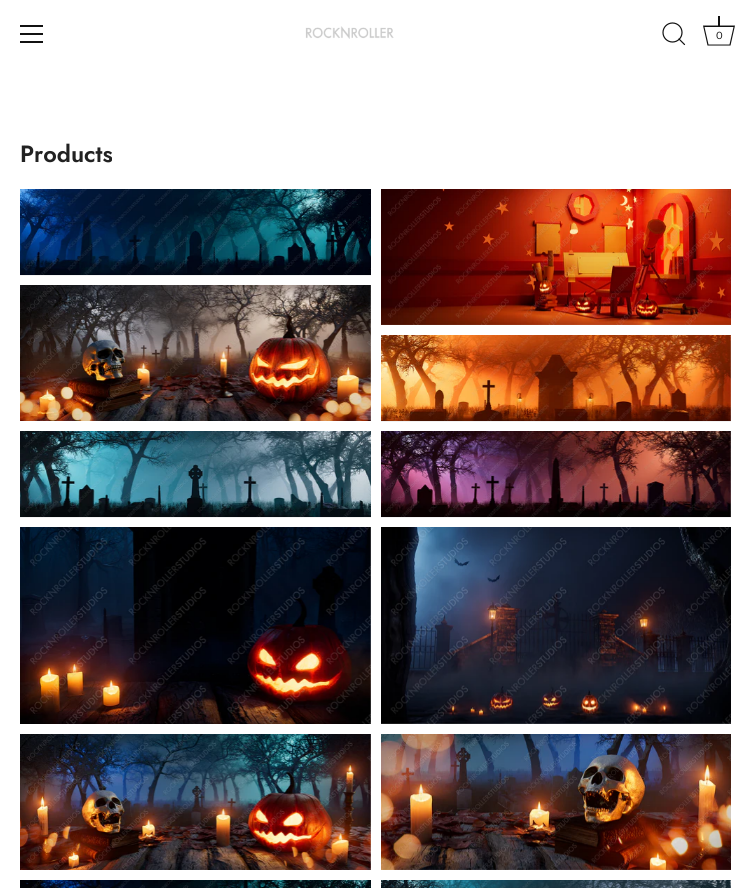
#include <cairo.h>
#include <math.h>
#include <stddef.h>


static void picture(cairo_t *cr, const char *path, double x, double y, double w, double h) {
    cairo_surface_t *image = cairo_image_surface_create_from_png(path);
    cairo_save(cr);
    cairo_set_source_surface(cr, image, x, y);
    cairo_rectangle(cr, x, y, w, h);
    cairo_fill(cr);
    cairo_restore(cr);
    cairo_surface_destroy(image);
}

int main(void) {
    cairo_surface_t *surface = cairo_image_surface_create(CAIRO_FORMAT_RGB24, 751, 888);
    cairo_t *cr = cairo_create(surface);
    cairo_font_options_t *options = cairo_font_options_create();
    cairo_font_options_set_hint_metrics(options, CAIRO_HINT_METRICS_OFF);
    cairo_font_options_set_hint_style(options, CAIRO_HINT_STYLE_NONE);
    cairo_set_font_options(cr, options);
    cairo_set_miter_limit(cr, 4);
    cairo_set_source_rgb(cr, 1, 1, 1);
    cairo_paint(cr);
    cairo_set_source_rgb(cr, 0.067, 0.067, 0.067);
    cairo_rectangle(cr, 20, 25, 23, 2);
    cairo_fill(cr);
    cairo_rectangle(cr, 20, 33, 23, 2);
    cairo_fill(cr);
    cairo_rectangle(cr, 20, 41, 23, 2);
    cairo_fill(cr);
    picture(cr, "img1.png", 305, 26, 89, 13);
    cairo_arc(cr, 672.5, 32.5, 9.5, 0, 2 * M_PI);
    cairo_set_line_width(cr, 1.2);
    cairo_stroke(cr);
    cairo_new_path(cr);
    cairo_move_to(cr, 684.5, 44.5);
    cairo_line_to(cr, 679, 39);
    cairo_set_line_cap(cr, CAIRO_LINE_CAP_ROUND);
    cairo_set_line_join(cr, CAIRO_LINE_JOIN_ROUND);
    cairo_stroke(cr);
    cairo_new_path(cr);
    cairo_move_to(cr, 733.5, 27);
    cairo_line_to(cr, 729.5, 44.5);
    cairo_line_to(cr, 708.5, 44.5);
    cairo_line_to(cr, 704.5, 27);
    cairo_line_to(cr, 733.5, 27);
    cairo_move_to(cr, 735, 25.5);
    cairo_line_to(cr, 703, 25.5);
    cairo_line_to(cr, 707.5, 45.5);
    cairo_line_to(cr, 730.5, 45.5);
    cairo_close_path(cr);
    cairo_fill(cr);
    cairo_rectangle(cr, 718, 16, 2, 10);
    cairo_fill(cr);
    cairo_select_font_face(cr, "Instrument Sans", CAIRO_FONT_SLANT_NORMAL, CAIRO_FONT_WEIGHT_NORMAL);
    cairo_set_font_size(cr, 10);
    cairo_move_to(cr, 716, 39);
    cairo_show_text(cr, "0");
    cairo_select_font_face(cr, "Jost SemiBold", CAIRO_FONT_SLANT_NORMAL, CAIRO_FONT_WEIGHT_NORMAL);
    cairo_set_font_size(cr, 23.5);
    cairo_set_source_rgb(cr, 0.133, 0.133, 0.133);
    cairo_move_to(cr, 20, 162);
    cairo_show_text(cr, "Products");
    cairo_set_source_rgb(cr, 0.949, 0.949, 0.949);
    cairo_rectangle(cr, 20, 275, 351, 1);
    cairo_fill(cr);
    picture(cr, "img2.png", 20, 189, 351, 86);
    picture(cr, "img3.png", 381, 189, 350, 136);
    picture(cr, "img4.png", 20, 285, 351, 136);
    cairo_rectangle(cr, 381, 335, 350, 87);
    cairo_fill(cr);
    picture(cr, "img5.png", 381, 335, 350, 86);
    cairo_rectangle(cr, 20, 517, 351, 1);
    cairo_fill(cr);
    picture(cr, "img6.png", 20, 431, 351, 86);
    cairo_rectangle(cr, 381, 431, 350, 87);
    cairo_fill(cr);
    picture(cr, "img7.png", 381, 431, 350, 86);
    picture(cr, "img8.png", 20, 527, 351, 197);
    picture(cr, "img9.png", 381, 527, 350, 197);
    picture(cr, "img10.png", 20, 734, 351, 136);
    picture(cr, "img11.png", 381, 734, 350, 136);
    picture(cr, "img12.png", 20, 880, 351, 8);
    picture(cr, "img13.png", 381, 880, 350, 8);
    cairo_surface_write_to_png(surface, "page.png");
    cairo_font_options_destroy(options);
    cairo_destroy(cr);
    cairo_surface_destroy(surface);
    return 0;
}
